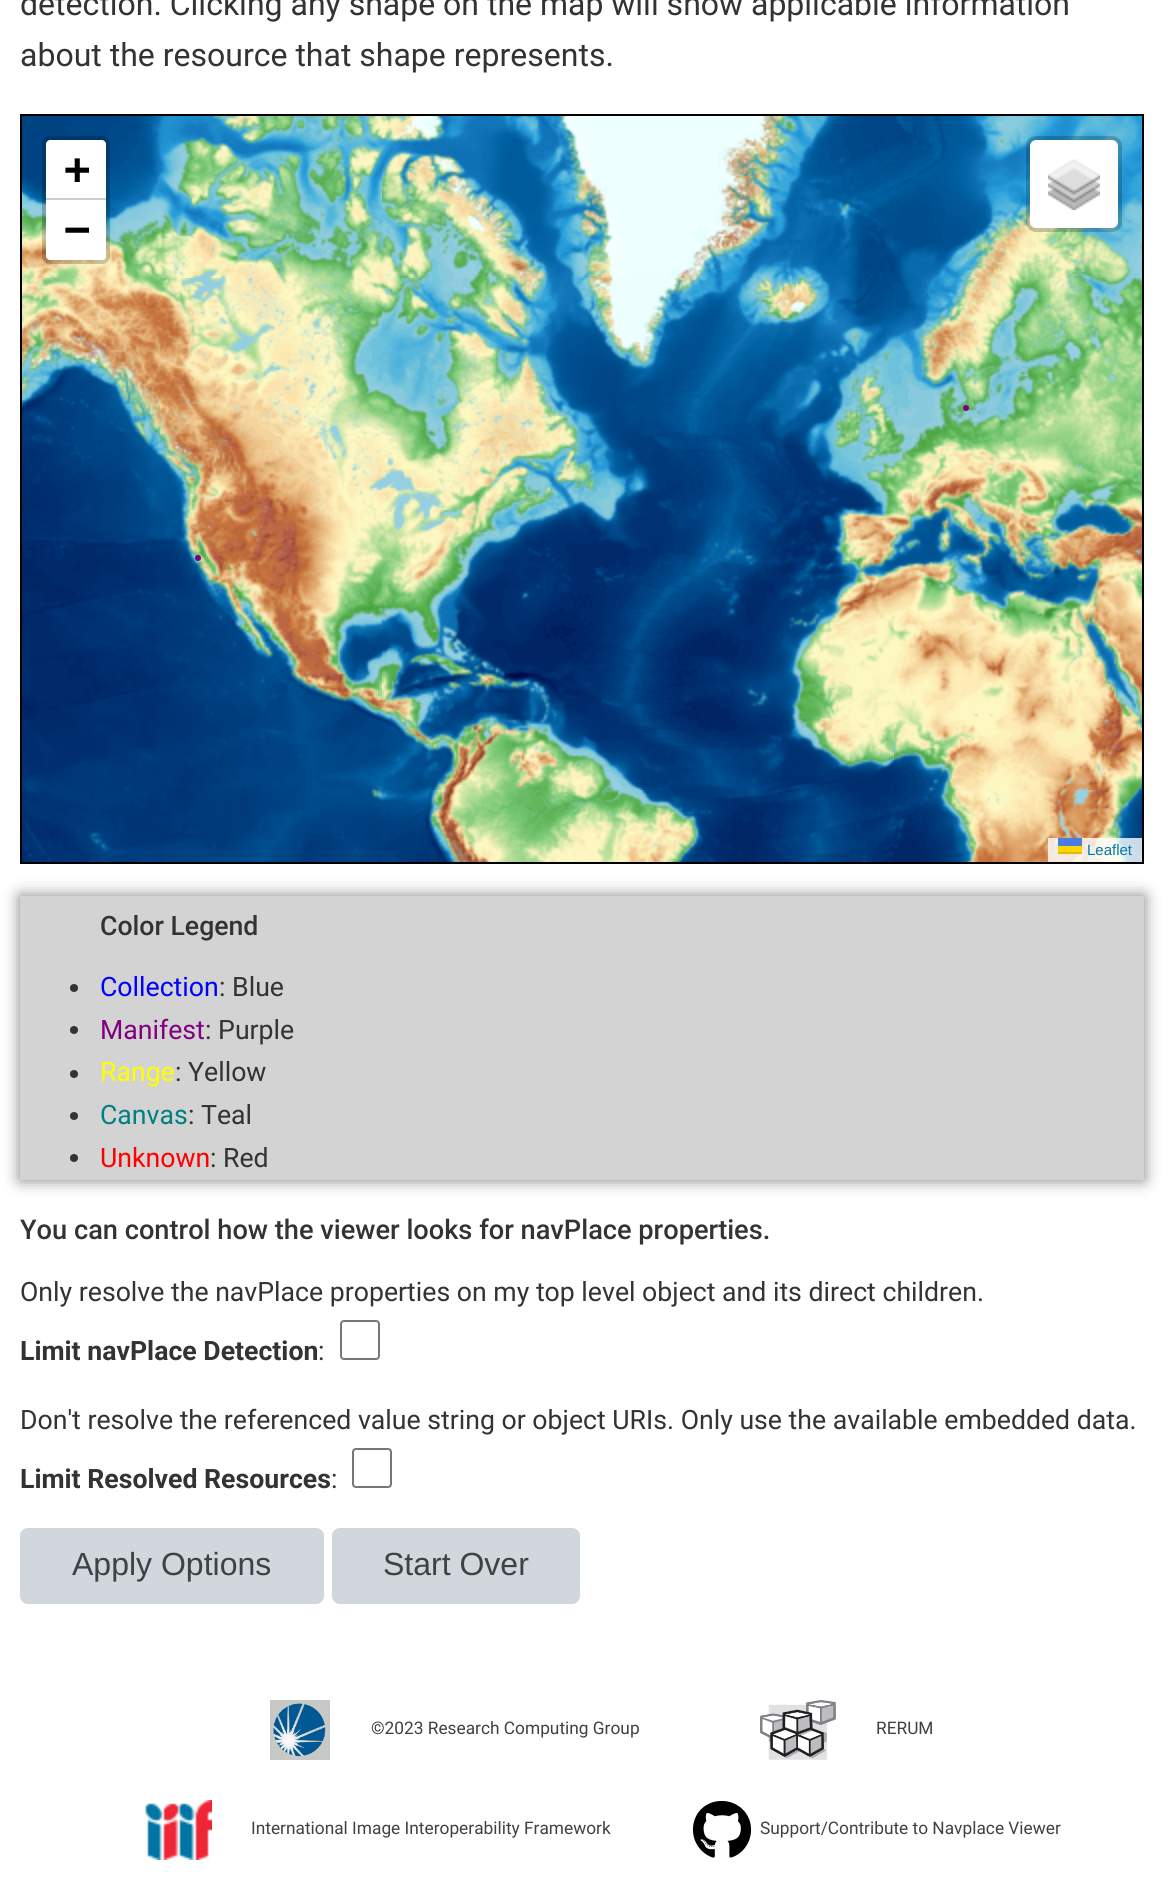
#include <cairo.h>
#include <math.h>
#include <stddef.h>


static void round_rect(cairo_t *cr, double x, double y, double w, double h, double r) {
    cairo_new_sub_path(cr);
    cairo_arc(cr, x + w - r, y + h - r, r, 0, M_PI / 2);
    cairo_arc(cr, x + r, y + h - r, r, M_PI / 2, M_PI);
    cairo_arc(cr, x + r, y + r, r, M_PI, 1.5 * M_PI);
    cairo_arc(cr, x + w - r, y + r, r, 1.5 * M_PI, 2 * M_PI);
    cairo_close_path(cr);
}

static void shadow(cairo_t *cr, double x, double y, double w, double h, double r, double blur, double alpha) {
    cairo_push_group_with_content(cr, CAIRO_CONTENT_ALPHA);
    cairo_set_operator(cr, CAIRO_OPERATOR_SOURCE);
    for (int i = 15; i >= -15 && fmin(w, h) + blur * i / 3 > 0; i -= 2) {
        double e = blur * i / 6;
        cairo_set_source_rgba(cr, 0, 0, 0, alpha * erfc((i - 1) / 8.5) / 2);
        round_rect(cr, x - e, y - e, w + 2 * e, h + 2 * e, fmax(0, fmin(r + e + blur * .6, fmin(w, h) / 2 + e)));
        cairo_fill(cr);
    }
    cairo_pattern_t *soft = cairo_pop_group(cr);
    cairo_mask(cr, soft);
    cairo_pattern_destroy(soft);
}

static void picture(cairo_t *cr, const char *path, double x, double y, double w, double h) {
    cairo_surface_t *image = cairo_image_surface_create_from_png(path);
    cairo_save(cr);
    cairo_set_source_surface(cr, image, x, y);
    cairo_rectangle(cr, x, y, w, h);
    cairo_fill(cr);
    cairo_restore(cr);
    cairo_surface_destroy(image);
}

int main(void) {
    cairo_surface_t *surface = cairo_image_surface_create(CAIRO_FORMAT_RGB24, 1163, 1879);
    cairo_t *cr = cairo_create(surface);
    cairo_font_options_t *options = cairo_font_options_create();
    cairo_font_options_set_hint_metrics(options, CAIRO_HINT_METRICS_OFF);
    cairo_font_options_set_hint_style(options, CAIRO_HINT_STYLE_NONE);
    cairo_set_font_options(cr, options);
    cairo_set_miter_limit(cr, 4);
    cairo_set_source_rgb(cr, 1, 1, 1);
    cairo_paint(cr);
    cairo_select_font_face(cr, "Roboto", CAIRO_FONT_SLANT_NORMAL, CAIRO_FONT_WEIGHT_NORMAL);
    cairo_set_font_size(cr, 32);
    cairo_set_source_rgb(cr, 0.2, 0.2, 0.2);
    cairo_move_to(cr, 20, 15);
    cairo_show_text(cr, "detection. Clicking any shape on the map will show applicable information");
    cairo_move_to(cr, 20, 66);
    cairo_show_text(cr, "about the resource that shape represents.");
    cairo_rectangle(cr, 21, 115, 1122, 748);
    cairo_set_source_rgb(cr, 0, 0, 0);
    cairo_stroke(cr);
    picture(cr, "img1.png", 22, 116, 360, 162);
    picture(cr, "img2.png", 382, 116, 512, 162);
    picture(cr, "img3.png", 894, 116, 248, 162);
    picture(cr, "img4.png", 22, 278, 360, 512);
    picture(cr, "img5.png", 382, 278, 512, 512);
    picture(cr, "img6.png", 894, 278, 248, 512);
    picture(cr, "img7.png", 22, 790, 360, 72);
    picture(cr, "img8.png", 382, 790, 512, 72);
    picture(cr, "img9.png", 894, 790, 248, 72);
    picture(cr, "img10.png", 195, 405, 774, 156);
    round_rect(cr, 44, 138, 64, 124, 6);
    cairo_set_source_rgba(cr, 0, 0, 0, 0.2);
    cairo_set_line_width(cr, 4);
    cairo_stroke(cr);
    cairo_set_source_rgb(cr, 1, 1, 1);
    cairo_new_path(cr);
    cairo_move_to(cr, 50, 140);
    cairo_line_to(cr, 102, 140);
    cairo_curve_to(cr, 104, 140, 106, 142, 106, 144);
    cairo_line_to(cr, 106, 200);
    cairo_line_to(cr, 46, 200);
    cairo_line_to(cr, 46, 144);
    cairo_curve_to(cr, 46, 142, 48, 140, 50, 140);
    cairo_close_path(cr);
    cairo_fill(cr);
    cairo_set_source_rgb(cr, 0.8, 0.8, 0.8);
    cairo_rectangle(cr, 46, 198, 60, 2);
    cairo_fill(cr);
    cairo_select_font_face(cr, "DejaVu Sans Mono", CAIRO_FONT_SLANT_NORMAL, CAIRO_FONT_WEIGHT_BOLD);
    cairo_set_font_size(cr, 44);
    cairo_set_source_rgb(cr, 0, 0, 0);
    cairo_move_to(cr, 64, 184);
    cairo_show_text(cr, "+");
    cairo_set_source_rgb(cr, 1, 1, 1);
    cairo_new_path(cr);
    cairo_move_to(cr, 46, 200);
    cairo_line_to(cr, 106, 200);
    cairo_line_to(cr, 106, 256);
    cairo_curve_to(cr, 106, 258, 104, 260, 102, 260);
    cairo_line_to(cr, 50, 260);
    cairo_curve_to(cr, 48, 260, 46, 258, 46, 256);
    cairo_close_path(cr);
    cairo_fill(cr);
    cairo_set_source_rgb(cr, 0, 0, 0);
    cairo_move_to(cr, 64, 244);
    cairo_show_text(cr, "−");
    cairo_set_source_rgb(cr, 1, 1, 1);
    round_rect(cr, 1030, 140, 88, 88, 6);
    cairo_fill(cr);
    round_rect(cr, 1028, 138, 92, 92, 8);
    cairo_set_source_rgba(cr, 0, 0, 0, 0.2);
    cairo_stroke(cr);
    picture(cr, "img11.png", 1048, 159, 52, 51);
    cairo_set_source_rgba(cr, 1, 1, 1, 0.8);
    cairo_rectangle(cr, 1048, 838, 94, 24);
    cairo_fill(cr);
    cairo_select_font_face(cr, "Liberation Sans", CAIRO_FONT_SLANT_NORMAL, CAIRO_FONT_WEIGHT_NORMAL);
    cairo_set_font_size(cr, 15);
    cairo_set_source_rgb(cr, 0, 0.471, 0.659);
    cairo_move_to(cr, 1087, 855);
    cairo_show_text(cr, "Leaflet");
    cairo_set_source_rgb(cr, 0.298, 0.482, 0.882);
    cairo_rectangle(cr, 1058, 838, 24, 8);
    cairo_fill(cr);
    cairo_set_source_rgb(cr, 1, 0.835, 0);
    cairo_rectangle(cr, 1058, 846, 24, 6);
    cairo_fill(cr);
    cairo_set_source_rgb(cr, 0.878, 0.737, 0);
    cairo_rectangle(cr, 1058, 852, 24, 2);
    cairo_fill(cr);
    cairo_set_source_rgb(cr, 0.502, 0.502, 0.502);
    shadow(cr, 20, 896, 1124, 284, 0, 8, 1);
    cairo_set_source_rgb(cr, 0.827, 0.827, 0.827);
    cairo_rectangle(cr, 20, 896, 1124, 284);
    cairo_fill(cr);
    cairo_select_font_face(cr, "Roboto Medium", CAIRO_FONT_SLANT_NORMAL, CAIRO_FONT_WEIGHT_NORMAL);
    cairo_set_font_size(cr, 26.65);
    cairo_set_source_rgb(cr, 0.2, 0.2, 0.2);
    cairo_move_to(cr, 100, 935);
    cairo_show_text(cr, "Color Legend");
    cairo_new_path(cr);
    cairo_arc(cr, 74, 988, 4, 0, 2 * M_PI);
    cairo_fill(cr);
    cairo_select_font_face(cr, "Roboto", CAIRO_FONT_SLANT_NORMAL, CAIRO_FONT_WEIGHT_NORMAL);
    cairo_set_source_rgb(cr, 0, 0, 1);
    cairo_move_to(cr, 100, 996);
    cairo_show_text(cr, "Collection");
    cairo_set_source_rgb(cr, 0.2, 0.2, 0.2);
    cairo_move_to(cr, 219, 996);
    cairo_show_text(cr, ": Blue");
    cairo_new_path(cr);
    cairo_arc(cr, 74, 1030, 4, 0, 2 * M_PI);
    cairo_fill(cr);
    cairo_set_source_rgb(cr, 0.502, 0, 0.502);
    cairo_move_to(cr, 100, 1039);
    cairo_show_text(cr, "Manifest");
    cairo_set_source_rgb(cr, 0.2, 0.2, 0.2);
    cairo_move_to(cr, 205, 1039);
    cairo_show_text(cr, ": Purple");
    cairo_new_path(cr);
    cairo_arc(cr, 74, 1074, 4, 0, 2 * M_PI);
    cairo_fill(cr);
    cairo_set_source_rgb(cr, 1, 1, 0);
    cairo_move_to(cr, 100, 1081);
    cairo_show_text(cr, "Range");
    cairo_set_source_rgb(cr, 0.2, 0.2, 0.2);
    cairo_move_to(cr, 175, 1081);
    cairo_show_text(cr, ": Yellow");
    cairo_new_path(cr);
    cairo_arc(cr, 74, 1116, 4, 0, 2 * M_PI);
    cairo_fill(cr);
    cairo_set_source_rgb(cr, 0, 0.502, 0.502);
    cairo_move_to(cr, 100, 1124);
    cairo_show_text(cr, "Canvas");
    cairo_set_source_rgb(cr, 0.2, 0.2, 0.2);
    cairo_move_to(cr, 188, 1124);
    cairo_show_text(cr, ": Teal");
    cairo_new_path(cr);
    cairo_arc(cr, 74, 1158, 4, 0, 2 * M_PI);
    cairo_fill(cr);
    cairo_set_source_rgb(cr, 1, 0, 0);
    cairo_move_to(cr, 100, 1167);
    cairo_show_text(cr, "Unknown");
    cairo_set_source_rgb(cr, 0.2, 0.2, 0.2);
    cairo_move_to(cr, 210, 1167);
    cairo_show_text(cr, ": Red");
    cairo_select_font_face(cr, "Roboto Medium", CAIRO_FONT_SLANT_NORMAL, CAIRO_FONT_WEIGHT_NORMAL);
    cairo_set_font_size(cr, 27.2);
    cairo_move_to(cr, 20, 1239);
    cairo_show_text(cr, "You can control how the viewer looks for navPlace properties.");
    cairo_select_font_face(cr, "Roboto", CAIRO_FONT_SLANT_NORMAL, CAIRO_FONT_WEIGHT_NORMAL);
    cairo_set_font_size(cr, 26.65);
    cairo_move_to(cr, 20, 1301);
    cairo_show_text(cr, "Only resolve the navPlace properties on my top level object and its direct children.");
    cairo_select_font_face(cr, "Roboto", CAIRO_FONT_SLANT_NORMAL, CAIRO_FONT_WEIGHT_BOLD);
    cairo_move_to(cr, 20, 1360);
    cairo_show_text(cr, "Limit navPlace Detection");
    cairo_select_font_face(cr, "Roboto", CAIRO_FONT_SLANT_NORMAL, CAIRO_FONT_WEIGHT_NORMAL);
    cairo_move_to(cr, 318, 1360);
    cairo_show_text(cr, ":");
    round_rect(cr, 341, 1321, 38, 38, 3);
    cairo_set_source_rgb(cr, 0.463, 0.463, 0.463);
    cairo_set_line_width(cr, 2);
    cairo_stroke(cr);
    cairo_set_source_rgb(cr, 0.2, 0.2, 0.2);
    cairo_move_to(cr, 20, 1429);
    cairo_show_text(cr, "Don't resolve the referenced value string or object URIs. Only use the available embedded data.");
    cairo_select_font_face(cr, "Roboto", CAIRO_FONT_SLANT_NORMAL, CAIRO_FONT_WEIGHT_BOLD);
    cairo_move_to(cr, 20, 1488);
    cairo_show_text(cr, "Limit Resolved Resources");
    cairo_select_font_face(cr, "Roboto", CAIRO_FONT_SLANT_NORMAL, CAIRO_FONT_WEIGHT_NORMAL);
    cairo_move_to(cr, 331, 1488);
    cairo_show_text(cr, ":");
    round_rect(cr, 353, 1449, 38, 38, 3);
    cairo_set_source_rgb(cr, 0.463, 0.463, 0.463);
    cairo_stroke(cr);
    cairo_set_source_rgb(cr, 0.824, 0.839, 0.867);
    round_rect(cr, 20, 1528, 304, 76, 8);
    cairo_fill(cr);
    cairo_select_font_face(cr, "Liberation Sans", CAIRO_FONT_SLANT_NORMAL, CAIRO_FONT_WEIGHT_NORMAL);
    cairo_set_font_size(cr, 32);
    cairo_set_source_rgb(cr, 0.247, 0.255, 0.267);
    cairo_move_to(cr, 72, 1575);
    cairo_show_text(cr, "Apply Options");
    cairo_set_source_rgb(cr, 0.824, 0.839, 0.867);
    round_rect(cr, 332, 1528, 248, 76, 8);
    cairo_fill(cr);
    cairo_set_source_rgb(cr, 0.247, 0.255, 0.267);
    cairo_move_to(cr, 383, 1575);
    cairo_show_text(cr, "Start Over");
    picture(cr, "img12.png", 270, 1700, 60, 60);
    cairo_select_font_face(cr, "Roboto", CAIRO_FONT_SLANT_NORMAL, CAIRO_FONT_WEIGHT_NORMAL);
    cairo_set_font_size(cr, 17.3);
    cairo_move_to(cr, 371, 1734);
    cairo_show_text(cr, "©2023 Research Computing Group");
    picture(cr, "img13.png", 760, 1700, 76, 60);
    cairo_move_to(cr, 876, 1734);
    cairo_show_text(cr, "RERUM");
    picture(cr, "img14.png", 145, 1800, 67, 60);
    cairo_move_to(cr, 251, 1834);
    cairo_show_text(cr, "International Image Interoperability Framework");
    picture(cr, "img15.png", 692, 1800, 60, 58);
    cairo_move_to(cr, 760, 1834);
    cairo_show_text(cr, "Support/Contribute to Navplace Viewer");
    cairo_surface_write_to_png(surface, "page.png");
    cairo_font_options_destroy(options);
    cairo_destroy(cr);
    cairo_surface_destroy(surface);
    return 0;
}
